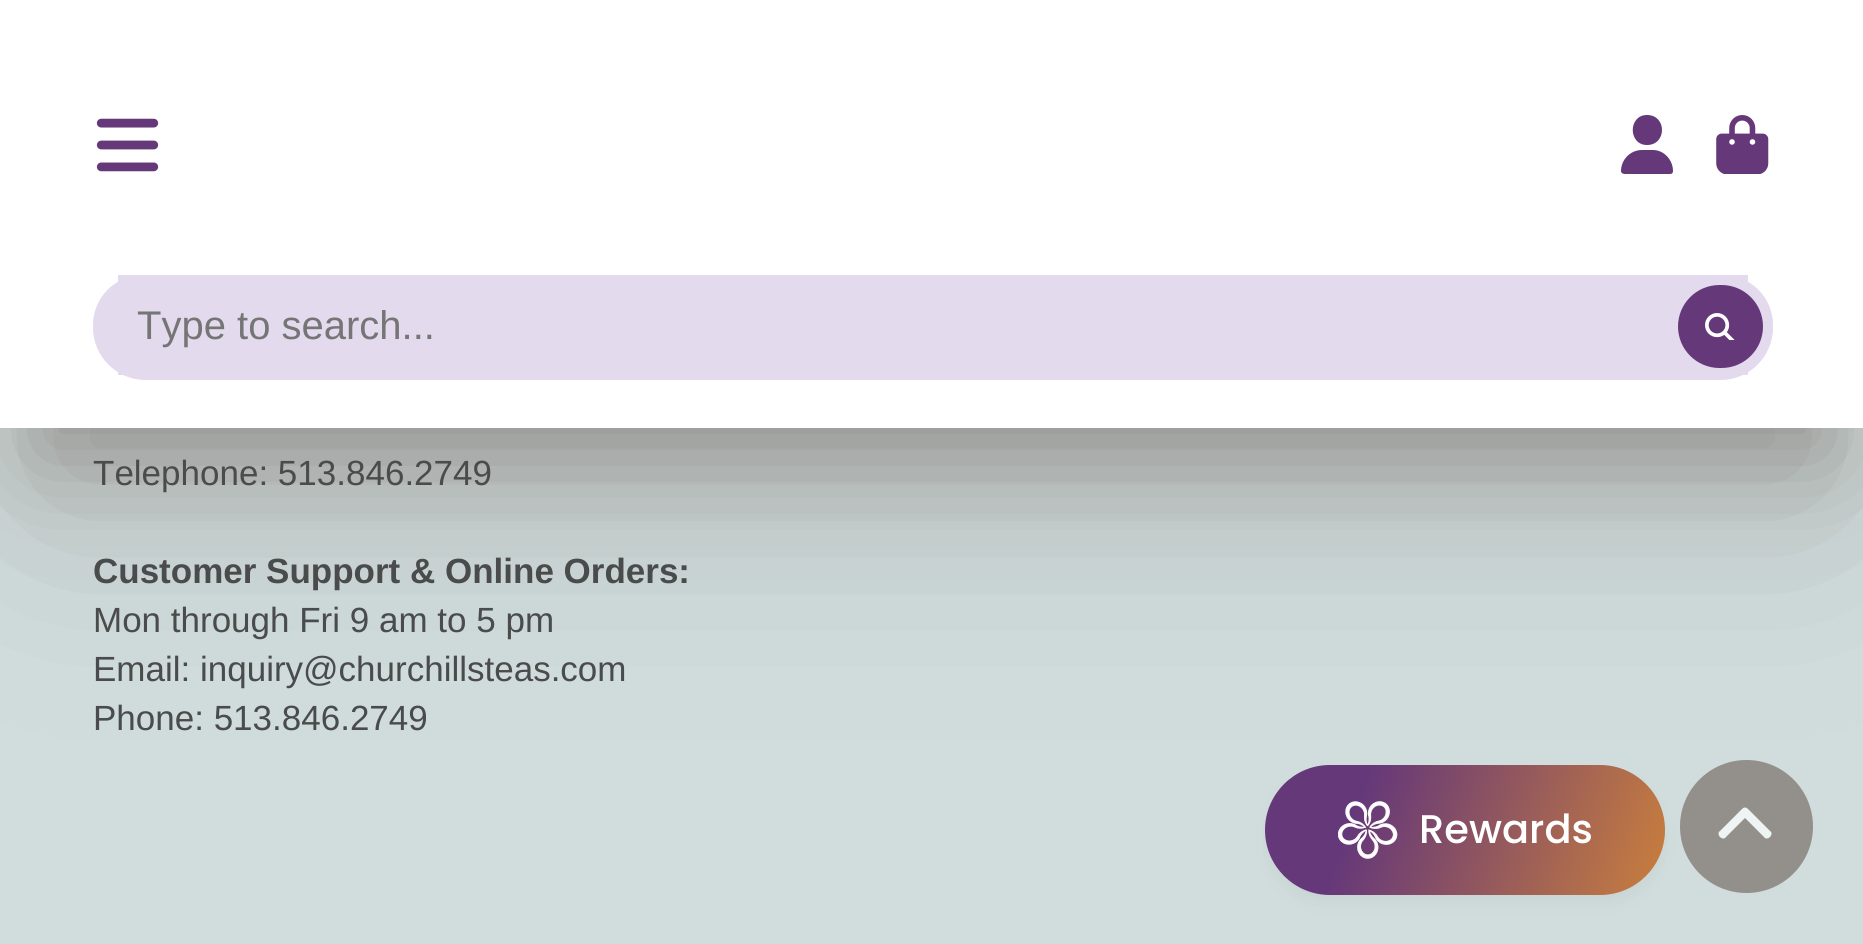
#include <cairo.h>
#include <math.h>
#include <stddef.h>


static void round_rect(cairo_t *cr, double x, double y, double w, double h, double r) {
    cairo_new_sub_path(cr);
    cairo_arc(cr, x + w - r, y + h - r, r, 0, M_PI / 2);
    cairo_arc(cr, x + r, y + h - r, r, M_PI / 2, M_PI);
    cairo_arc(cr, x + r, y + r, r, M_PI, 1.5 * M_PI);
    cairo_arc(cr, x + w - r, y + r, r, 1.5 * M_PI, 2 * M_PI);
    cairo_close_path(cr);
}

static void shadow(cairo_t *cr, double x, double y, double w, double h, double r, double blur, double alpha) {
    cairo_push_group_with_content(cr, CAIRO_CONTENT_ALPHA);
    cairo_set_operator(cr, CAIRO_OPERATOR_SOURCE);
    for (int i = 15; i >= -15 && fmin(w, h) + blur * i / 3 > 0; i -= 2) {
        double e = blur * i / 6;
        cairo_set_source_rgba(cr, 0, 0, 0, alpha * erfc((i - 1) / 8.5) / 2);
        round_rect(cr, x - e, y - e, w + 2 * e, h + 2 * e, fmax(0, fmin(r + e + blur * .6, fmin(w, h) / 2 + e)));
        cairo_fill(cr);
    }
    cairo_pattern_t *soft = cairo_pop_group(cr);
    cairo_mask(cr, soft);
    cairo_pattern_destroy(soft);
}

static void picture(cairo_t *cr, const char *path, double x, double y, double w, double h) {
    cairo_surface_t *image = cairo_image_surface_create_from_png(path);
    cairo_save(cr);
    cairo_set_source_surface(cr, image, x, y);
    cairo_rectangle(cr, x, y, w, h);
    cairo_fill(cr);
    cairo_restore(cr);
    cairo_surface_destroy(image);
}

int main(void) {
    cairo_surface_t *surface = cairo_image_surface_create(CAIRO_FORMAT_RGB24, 1863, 944);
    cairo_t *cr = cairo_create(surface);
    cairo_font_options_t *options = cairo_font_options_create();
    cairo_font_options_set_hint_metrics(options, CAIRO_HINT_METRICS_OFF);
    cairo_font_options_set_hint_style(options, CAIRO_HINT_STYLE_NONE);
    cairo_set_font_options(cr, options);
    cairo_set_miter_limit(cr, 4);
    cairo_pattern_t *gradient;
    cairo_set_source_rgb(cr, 0.82, 0.867, 0.867);
    cairo_paint(cr);
    cairo_set_source_rgb(cr, 0.384, 0.341, 0.318);
    shadow(cr, 35, 100, 1795, 358, 0, 48, 0.4);
    shadow(cr, 35, 145, 1795, 358, 0, 109.5, 0.3);
    cairo_set_source_rgb(cr, 1, 1, 1);
    cairo_rectangle(cr, 0, 0, 1863, 428);
    cairo_fill(cr);
    picture(cr, "img1.png", 96, 118, 63, 54);
    cairo_set_source_rgb(cr, 0.396, 0.22, 0.475);
    cairo_new_path(cr);
    cairo_move_to(cr, 1647, 145);
    cairo_curve_to(cr, 1667, 145, 1667, 115, 1647, 115);
    cairo_curve_to(cr, 1628, 115, 1628, 145, 1647, 145);
    cairo_close_path(cr);
    cairo_move_to(cr, 1642, 150);
    cairo_curve_to(cr, 1630, 150, 1621, 160, 1621, 171);
    cairo_curve_to(cr, 1621, 173, 1623, 174, 1625, 174);
    cairo_line_to(cr, 1670, 174);
    cairo_curve_to(cr, 1672, 174, 1673, 173, 1673, 171);
    cairo_curve_to(cr, 1673, 160, 1664, 150, 1653, 150);
    cairo_close_path(cr);
    cairo_fill(cr);
    picture(cr, "img2.png", 1716, 115, 53, 59);
    cairo_set_source_rgb(cr, 0.89, 0.855, 0.933);
    round_rect(cr, 93, 275, 1680, 100, 50);
    cairo_fill(cr);
    cairo_rectangle(cr, 118, 275, 1630, 100);
    cairo_fill(cr);
    round_rect(cr, 93, 275, 1680, 105, 52.5);
    cairo_fill(cr);
    cairo_select_font_face(cr, "Liberation Sans", CAIRO_FONT_SLANT_NORMAL, CAIRO_FONT_WEIGHT_NORMAL);
    cairo_set_font_size(cr, 40);
    cairo_set_source_rgb(cr, 0.459, 0.459, 0.459);
    cairo_move_to(cr, 137, 339);
    cairo_show_text(cr, "Type to search...");
    cairo_set_source_rgb(cr, 0.396, 0.22, 0.475);
    round_rect(cr, 1678, 285, 85, 83, 41.5);
    cairo_fill(cr);
    picture(cr, "img3.png", 1705, 313, 30, 27);
    cairo_set_font_size(cr, 35);
    cairo_set_source_rgb(cr, 0.29, 0.294, 0.294);
    cairo_move_to(cr, 93, 485);
    cairo_show_text(cr, "Telephone: 513.846.2749");
    cairo_select_font_face(cr, "Liberation Sans", CAIRO_FONT_SLANT_NORMAL, CAIRO_FONT_WEIGHT_BOLD);
    cairo_move_to(cr, 93, 583);
    cairo_show_text(cr, "Customer Support & Online Orders:");
    cairo_select_font_face(cr, "Liberation Sans", CAIRO_FONT_SLANT_NORMAL, CAIRO_FONT_WEIGHT_NORMAL);
    cairo_move_to(cr, 93, 632);
    cairo_show_text(cr, "Mon through Fri 9 am to 5 pm");
    cairo_move_to(cr, 93, 681);
    cairo_show_text(cr, "Email: inquiry@churchillsteas.com");
    cairo_move_to(cr, 93, 730);
    cairo_show_text(cr, "Phone: 513.846.2749");
    cairo_set_source_rgb(cr, 0.576, 0.561, 0.545);
    cairo_new_path(cr);
    cairo_arc(cr, 1746.5, 826.5, 66.5, 0, 2 * M_PI);
    cairo_fill(cr);
    cairo_set_source_rgb(cr, 0.267, 0.267, 0.267);
    shadow(cr, 1270, 780, 390, 120, 60, 10, 0.08);
    gradient = cairo_pattern_create_linear(1267, 760, 1822, 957);
    cairo_pattern_add_color_stop_rgba(gradient, 0.17, 0.396, 0.22, 0.475, 1);
    cairo_pattern_add_color_stop_rgba(gradient, 1, 1, 0.643, 0.11, 1);
    cairo_set_source(cr, gradient);
    cairo_pattern_destroy(gradient);
    round_rect(cr, 1265, 765, 400, 130, 65);
    cairo_fill(cr);
    picture(cr, "img4.png", 1338, 801, 60, 58);
    cairo_select_font_face(cr, "Poppins Medium", CAIRO_FONT_SLANT_NORMAL, CAIRO_FONT_WEIGHT_NORMAL);
    cairo_set_font_size(cr, 40);
    cairo_set_source_rgb(cr, 1, 1, 1);
    cairo_move_to(cr, 1419, 843);
    cairo_show_text(cr, "Rewards");
    cairo_set_source_rgb(cr, 0.933, 0.953, 0.953);
    cairo_new_path(cr);
    cairo_move_to(cr, 1742, 809);
    cairo_curve_to(cr, 1744, 807, 1746, 807, 1748, 809);
    cairo_line_to(cr, 1770, 831);
    cairo_curve_to(cr, 1772, 832, 1772, 835, 1770, 837);
    cairo_curve_to(cr, 1768, 839, 1765, 839, 1764, 837);
    cairo_line_to(cr, 1745, 818);
    cairo_line_to(cr, 1726, 837);
    cairo_curve_to(cr, 1725, 839, 1722, 839, 1720, 837);
    cairo_curve_to(cr, 1718, 835, 1718, 832, 1720, 831);
    cairo_close_path(cr);
    cairo_fill(cr);
    cairo_surface_write_to_png(surface, "page.png");
    cairo_font_options_destroy(options);
    cairo_destroy(cr);
    cairo_surface_destroy(surface);
    return 0;
}
